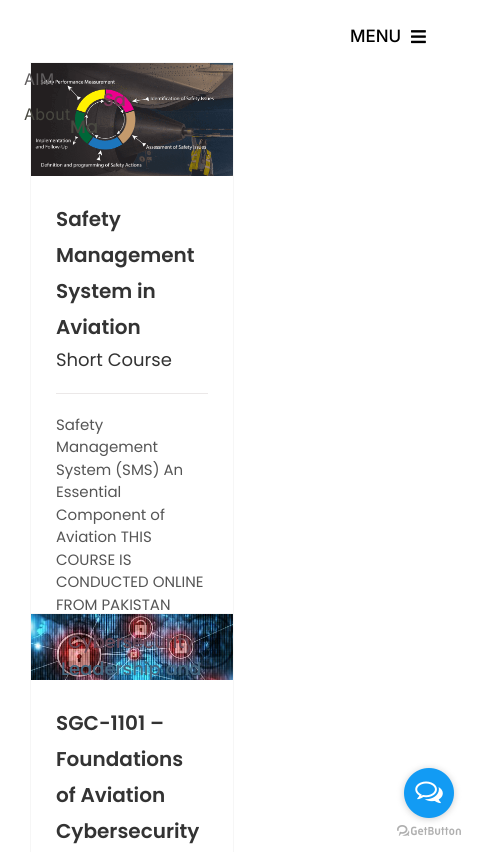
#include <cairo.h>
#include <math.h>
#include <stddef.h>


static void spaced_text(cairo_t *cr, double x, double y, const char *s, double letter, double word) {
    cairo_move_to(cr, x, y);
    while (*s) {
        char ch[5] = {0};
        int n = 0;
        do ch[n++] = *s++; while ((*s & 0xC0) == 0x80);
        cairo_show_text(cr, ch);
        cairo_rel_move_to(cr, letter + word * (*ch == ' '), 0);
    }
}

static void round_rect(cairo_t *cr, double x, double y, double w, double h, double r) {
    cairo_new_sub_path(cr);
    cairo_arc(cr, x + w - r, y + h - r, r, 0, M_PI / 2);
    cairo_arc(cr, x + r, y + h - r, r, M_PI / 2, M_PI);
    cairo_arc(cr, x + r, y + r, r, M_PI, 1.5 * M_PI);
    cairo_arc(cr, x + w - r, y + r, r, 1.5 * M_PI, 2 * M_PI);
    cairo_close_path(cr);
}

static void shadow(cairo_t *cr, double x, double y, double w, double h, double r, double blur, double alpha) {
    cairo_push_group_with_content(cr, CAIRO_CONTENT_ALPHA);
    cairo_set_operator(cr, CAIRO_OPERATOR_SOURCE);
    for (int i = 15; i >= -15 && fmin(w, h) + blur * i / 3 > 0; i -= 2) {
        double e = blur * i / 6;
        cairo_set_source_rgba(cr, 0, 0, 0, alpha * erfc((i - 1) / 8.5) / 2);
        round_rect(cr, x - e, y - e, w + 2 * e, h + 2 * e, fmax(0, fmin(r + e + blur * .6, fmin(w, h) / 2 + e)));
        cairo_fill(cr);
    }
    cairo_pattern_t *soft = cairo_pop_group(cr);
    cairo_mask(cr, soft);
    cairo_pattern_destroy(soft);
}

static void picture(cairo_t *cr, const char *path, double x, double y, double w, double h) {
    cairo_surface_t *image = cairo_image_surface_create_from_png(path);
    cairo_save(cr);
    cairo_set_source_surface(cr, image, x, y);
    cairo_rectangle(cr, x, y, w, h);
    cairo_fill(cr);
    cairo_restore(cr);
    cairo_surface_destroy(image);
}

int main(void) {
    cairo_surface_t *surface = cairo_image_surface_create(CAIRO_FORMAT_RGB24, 477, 852);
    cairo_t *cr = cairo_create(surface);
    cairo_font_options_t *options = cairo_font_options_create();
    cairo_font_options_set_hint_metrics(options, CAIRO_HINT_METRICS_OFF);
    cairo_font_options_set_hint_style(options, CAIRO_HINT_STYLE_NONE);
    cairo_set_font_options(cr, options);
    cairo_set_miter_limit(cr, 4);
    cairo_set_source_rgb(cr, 1, 1, 1);
    cairo_paint(cr);
    cairo_select_font_face(cr, "Inter Medium", CAIRO_FONT_SLANT_NORMAL, CAIRO_FONT_WEIGHT_NORMAL);
    cairo_set_font_size(cr, 17);
    cairo_set_source_rgb(cr, 0, 0, 0);
    cairo_move_to(cr, 350, 42);
    cairo_show_text(cr, "MENU");
    picture(cr, "img1.png", 411, 30, 15, 14);
    cairo_set_source_rgb(cr, 0.961, 0.961, 0.961);
    cairo_rectangle(cr, 30, 62, 204, 1);
    cairo_fill(cr);
    cairo_rectangle(cr, 30, 62, 1, 551);
    cairo_fill(cr);
    picture(cr, "img2.png", 31, 63, 202, 113);
    cairo_select_font_face(cr, "Inter", CAIRO_FONT_SLANT_NORMAL, CAIRO_FONT_WEIGHT_NORMAL);
    cairo_set_font_size(cr, 16);
    cairo_set_source_rgb(cr, 0.376, 0.365, 0.369);
    spaced_text(cr, 24, 85, "AIM", 0.25, 0);
    cairo_set_source_rgb(cr, 0.282, 0.282, 0.251);
    spaced_text(cr, 24, 120, "About", 0.25, 0);
    cairo_set_source_rgb(cr, 0.961, 0.961, 0.961);
    cairo_rectangle(cr, 233, 62, 1, 551);
    cairo_fill(cr);
    cairo_select_font_face(cr, "Poppins Medium", CAIRO_FONT_SLANT_NORMAL, CAIRO_FONT_WEIGHT_NORMAL);
    cairo_set_font_size(cr, 18);
    cairo_set_source_rgb(cr, 0.478, 0.239, 0.353);
    cairo_move_to(cr, 103, 106);
    cairo_show_text(cr, "Sa");
    cairo_set_source_rgb(cr, 0.282, 0.282, 0.251);
    cairo_move_to(cr, 70, 133);
    cairo_show_text(cr, "Ma");
    cairo_select_font_face(cr, "Poppins SemiBold", CAIRO_FONT_SLANT_NORMAL, CAIRO_FONT_WEIGHT_NORMAL);
    cairo_set_font_size(cr, 20);
    cairo_set_source_rgb(cr, 0.2, 0.2, 0.2);
    cairo_move_to(cr, 56, 226);
    cairo_show_text(cr, "Safety");
    cairo_move_to(cr, 56, 262);
    cairo_show_text(cr, "Management");
    cairo_move_to(cr, 56, 298);
    cairo_show_text(cr, "System in");
    cairo_move_to(cr, 56, 334);
    cairo_show_text(cr, "Aviation");
    cairo_select_font_face(cr, "Poppins", CAIRO_FONT_SLANT_NORMAL, CAIRO_FONT_WEIGHT_NORMAL);
    cairo_set_font_size(cr, 18);
    cairo_move_to(cr, 56, 366);
    cairo_show_text(cr, "Short Course");
    cairo_set_source_rgb(cr, 0.918, 0.91, 0.91);
    cairo_rectangle(cr, 56, 393, 152, 1);
    cairo_fill(cr);
    cairo_set_font_size(cr, 15);
    cairo_set_source_rgb(cr, 0.333, 0.333, 0.333);
    cairo_move_to(cr, 56, 430);
    cairo_show_text(cr, "Safety");
    cairo_move_to(cr, 56, 452);
    cairo_show_text(cr, "Management");
    cairo_move_to(cr, 56, 475);
    cairo_show_text(cr, "System (SMS) An");
    cairo_move_to(cr, 56, 497);
    cairo_show_text(cr, "Essential");
    cairo_move_to(cr, 56, 520);
    cairo_show_text(cr, "Component of");
    cairo_move_to(cr, 56, 542);
    cairo_show_text(cr, "Aviation THIS");
    cairo_move_to(cr, 56, 565);
    cairo_show_text(cr, "COURSE IS");
    cairo_move_to(cr, 56, 587);
    cairo_show_text(cr, "CONDUCTED ONLINE");
    cairo_move_to(cr, 56, 610);
    cairo_show_text(cr, "FROM PAKISTAN");
    cairo_set_source_rgb(cr, 0.961, 0.961, 0.961);
    cairo_rectangle(cr, 30, 613, 204, 1);
    cairo_fill(cr);
    cairo_rectangle(cr, 233, 613, 1, 239);
    cairo_fill(cr);
    cairo_rectangle(cr, 30, 613, 1, 239);
    cairo_fill(cr);
    picture(cr, "img3.png", 31, 614, 202, 66);
    cairo_select_font_face(cr, "Poppins Medium", CAIRO_FONT_SLANT_NORMAL, CAIRO_FONT_WEIGHT_NORMAL);
    cairo_set_font_size(cr, 18);
    cairo_set_source_rgb(cr, 0.4, 0.286, 0.341);
    cairo_move_to(cr, 68, 648);
    cairo_show_text(cr, "Cybersecurity");
    cairo_set_source_rgb(cr, 0.267, 0.404, 0.498);
    cairo_move_to(cr, 61, 675);
    cairo_show_text(cr, "Leadership and");
    cairo_select_font_face(cr, "Poppins SemiBold", CAIRO_FONT_SLANT_NORMAL, CAIRO_FONT_WEIGHT_NORMAL);
    cairo_set_font_size(cr, 20);
    cairo_set_source_rgb(cr, 0.2, 0.2, 0.2);
    cairo_move_to(cr, 56, 730);
    cairo_show_text(cr, "SGC-1101 –");
    cairo_move_to(cr, 56, 766);
    cairo_show_text(cr, "Foundations");
    cairo_move_to(cr, 56, 802);
    cairo_show_text(cr, "of Aviation");
    cairo_move_to(cr, 56, 838);
    cairo_show_text(cr, "Cybersecurity");
    picture(cr, "img5.png", 397, 825, 64, 11);
    cairo_set_source_rgb(cr, 0.533, 0.533, 0.533);
    shadow(cr, 404, 769, 50, 50, 25, 3.5, 0.4);
    cairo_set_source_rgb(cr, 0.071, 0.608, 0.957);
    cairo_arc(cr, 429, 793, 25, 0, 2 * M_PI);
    cairo_fill(cr);
    picture(cr, "img4.png", 415, 781, 28, 23);
    cairo_surface_write_to_png(surface, "page.png");
    cairo_font_options_destroy(options);
    cairo_destroy(cr);
    cairo_surface_destroy(surface);
    return 0;
}
